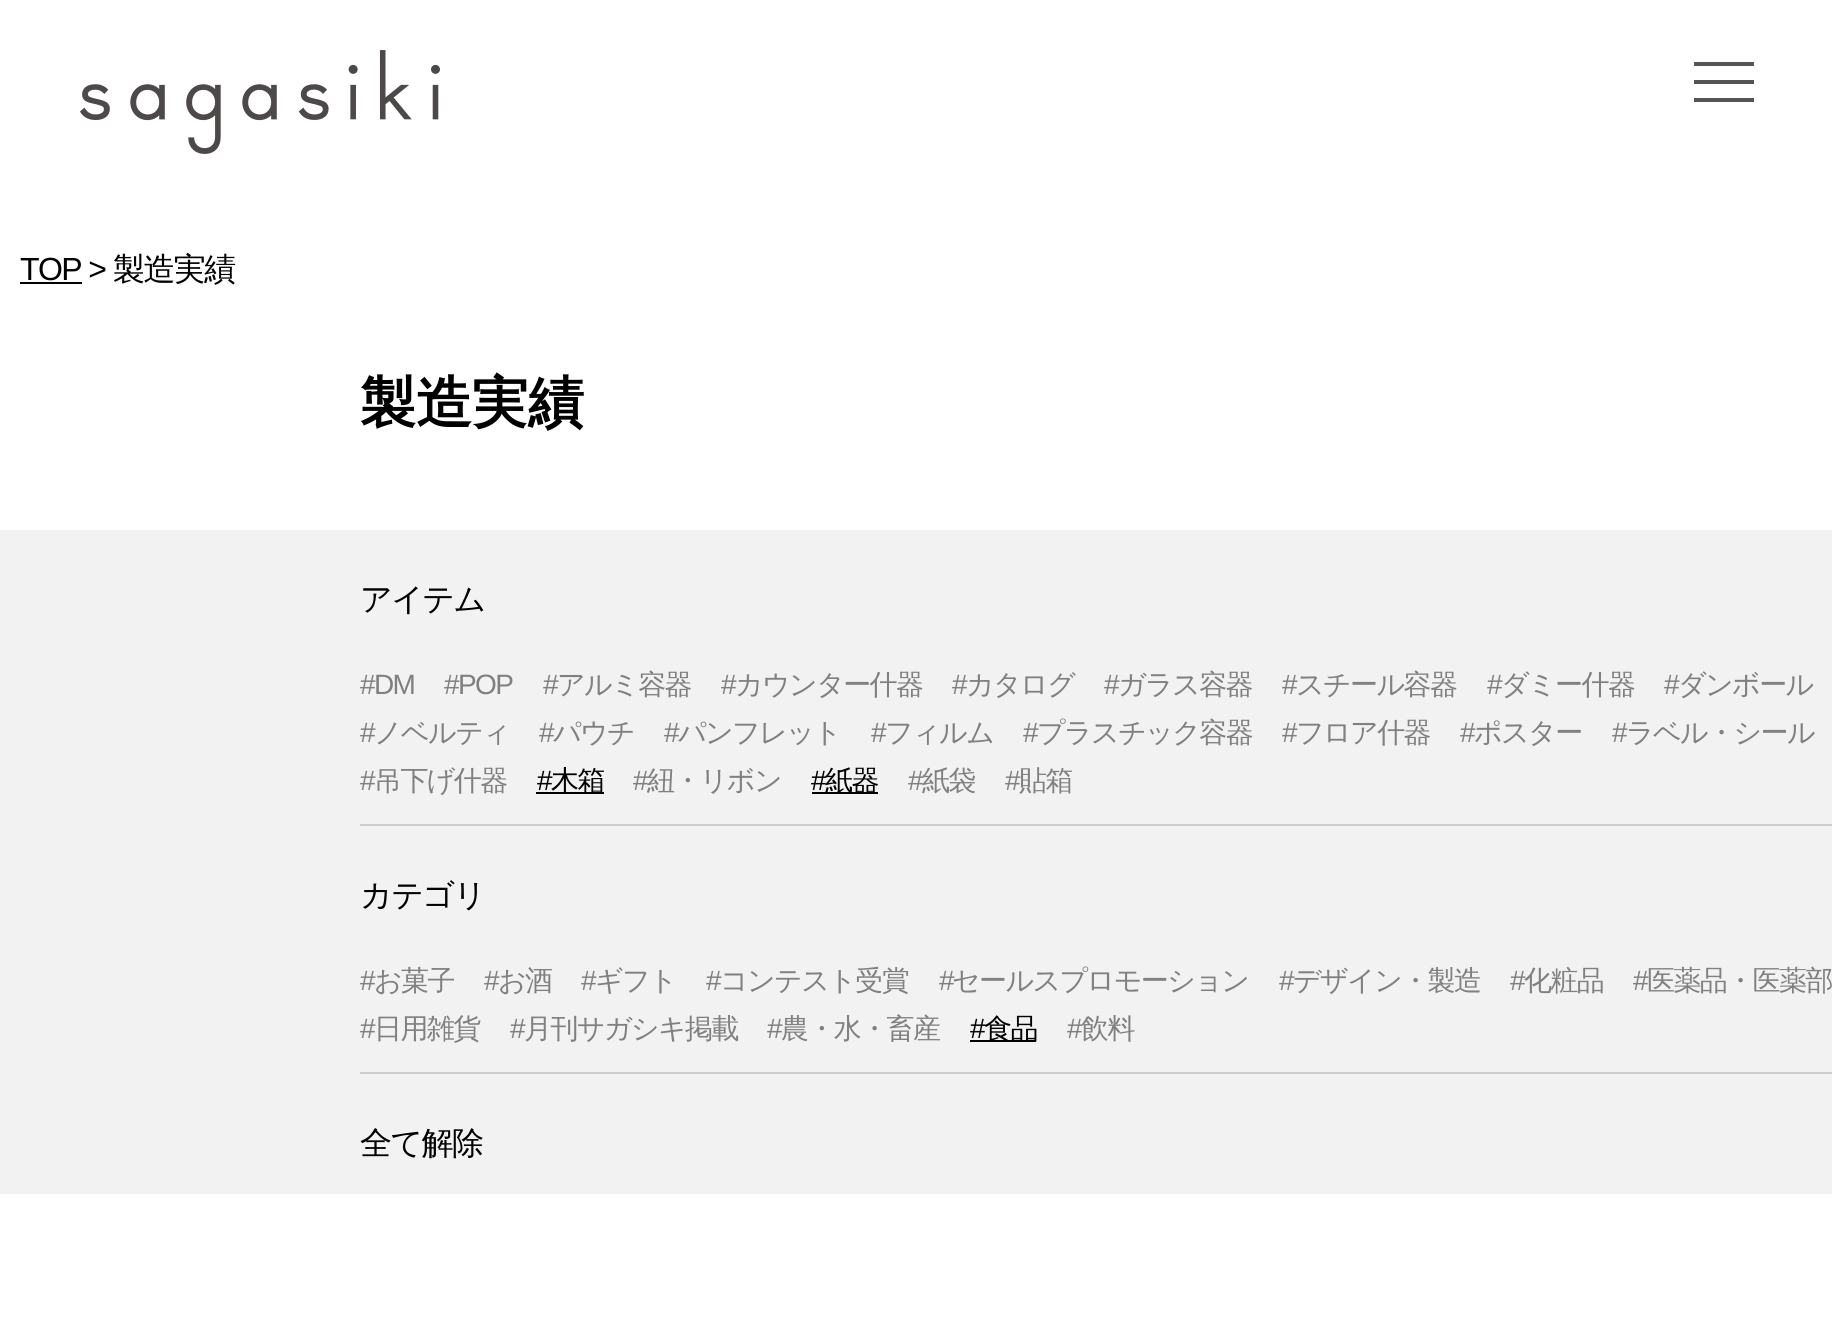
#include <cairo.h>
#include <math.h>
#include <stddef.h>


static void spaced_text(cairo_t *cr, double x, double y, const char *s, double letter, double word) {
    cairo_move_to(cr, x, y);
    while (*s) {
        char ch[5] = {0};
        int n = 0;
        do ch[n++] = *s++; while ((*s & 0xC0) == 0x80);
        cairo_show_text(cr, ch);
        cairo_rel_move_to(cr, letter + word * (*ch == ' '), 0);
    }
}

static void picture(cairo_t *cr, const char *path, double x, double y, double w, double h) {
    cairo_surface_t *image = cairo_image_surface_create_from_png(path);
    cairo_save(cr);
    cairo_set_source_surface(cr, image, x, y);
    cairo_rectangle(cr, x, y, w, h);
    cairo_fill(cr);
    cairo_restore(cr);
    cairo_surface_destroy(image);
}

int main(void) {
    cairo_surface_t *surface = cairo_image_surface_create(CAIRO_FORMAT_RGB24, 1832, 1344);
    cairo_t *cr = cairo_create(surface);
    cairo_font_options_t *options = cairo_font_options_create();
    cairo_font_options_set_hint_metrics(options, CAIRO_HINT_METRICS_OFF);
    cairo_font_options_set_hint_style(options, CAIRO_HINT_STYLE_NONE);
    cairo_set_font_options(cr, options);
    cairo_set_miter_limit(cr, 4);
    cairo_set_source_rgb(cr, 1, 1, 1);
    cairo_paint(cr);
    picture(cr, "img1.png", 80, 50, 360, 104);
    cairo_set_source_rgb(cr, 0.333, 0.333, 0.333);
    cairo_rectangle(cr, 1694, 62, 60, 4);
    cairo_fill(cr);
    cairo_rectangle(cr, 1694, 80, 60, 4);
    cairo_fill(cr);
    cairo_rectangle(cr, 1694, 98, 60, 4);
    cairo_fill(cr);
    cairo_select_font_face(cr, "Liberation Sans", CAIRO_FONT_SLANT_NORMAL, CAIRO_FONT_WEIGHT_NORMAL);
    cairo_set_font_size(cr, 32);
    cairo_set_source_rgb(cr, 0, 0, 0);
    spaced_text(cr, 20, 280, "TOP >", -1.6, 0);
    cairo_rectangle(cr, 20, 282, 62, 2);
    cairo_fill(cr);
    cairo_select_font_face(cr, "WenQuanYi Zen Hei Medium", CAIRO_FONT_SLANT_NORMAL, CAIRO_FONT_WEIGHT_NORMAL);
    spaced_text(cr, 113, 280, "製造実績", -1.6, 0);
    cairo_select_font_face(cr, "WenQuanYi Zen Hei", CAIRO_FONT_SLANT_NORMAL, CAIRO_FONT_WEIGHT_BOLD);
    cairo_set_font_size(cr, 56);
    cairo_move_to(cr, 360, 422);
    cairo_show_text(cr, "製造実績");
    cairo_set_source_rgb(cr, 0.949, 0.949, 0.949);
    cairo_rectangle(cr, 0, 530, 1832, 664);
    cairo_fill(cr);
    cairo_set_source_rgb(cr, 0.8, 0.8, 0.8);
    cairo_rectangle(cr, 360, 824, 1472, 2);
    cairo_fill(cr);
    cairo_select_font_face(cr, "WenQuanYi Zen Hei Medium", CAIRO_FONT_SLANT_NORMAL, CAIRO_FONT_WEIGHT_NORMAL);
    cairo_set_font_size(cr, 32);
    cairo_set_source_rgb(cr, 0, 0, 0);
    spaced_text(cr, 360, 610, "アイテム", -1.6, 0);
    cairo_select_font_face(cr, "Liberation Sans", CAIRO_FONT_SLANT_NORMAL, CAIRO_FONT_WEIGHT_NORMAL);
    cairo_set_font_size(cr, 28);
    cairo_set_source_rgb(cr, 0.502, 0.502, 0.502);
    spaced_text(cr, 360, 694, "#DM", -1.6, 0);
    spaced_text(cr, 444, 694, "#POP", -1.6, 0);
    spaced_text(cr, 543, 694, "#", -1.6, 0);
    cairo_select_font_face(cr, "WenQuanYi Zen Hei Medium", CAIRO_FONT_SLANT_NORMAL, CAIRO_FONT_WEIGHT_NORMAL);
    spaced_text(cr, 557, 694, "アルミ容器", -1.6, 0);
    cairo_select_font_face(cr, "Liberation Sans", CAIRO_FONT_SLANT_NORMAL, CAIRO_FONT_WEIGHT_NORMAL);
    spaced_text(cr, 721, 694, "#", -1.6, 0);
    cairo_select_font_face(cr, "WenQuanYi Zen Hei Medium", CAIRO_FONT_SLANT_NORMAL, CAIRO_FONT_WEIGHT_NORMAL);
    spaced_text(cr, 735, 694, "カウンター什器", -1.6, 0);
    cairo_select_font_face(cr, "Liberation Sans", CAIRO_FONT_SLANT_NORMAL, CAIRO_FONT_WEIGHT_NORMAL);
    spaced_text(cr, 952, 694, "#", -1.6, 0);
    cairo_select_font_face(cr, "WenQuanYi Zen Hei Medium", CAIRO_FONT_SLANT_NORMAL, CAIRO_FONT_WEIGHT_NORMAL);
    spaced_text(cr, 966, 694, "カタログ", -1.6, 0);
    cairo_select_font_face(cr, "Liberation Sans", CAIRO_FONT_SLANT_NORMAL, CAIRO_FONT_WEIGHT_NORMAL);
    spaced_text(cr, 1104, 694, "#", -1.6, 0);
    cairo_select_font_face(cr, "WenQuanYi Zen Hei Medium", CAIRO_FONT_SLANT_NORMAL, CAIRO_FONT_WEIGHT_NORMAL);
    spaced_text(cr, 1118, 694, "ガラス容器", -1.6, 0);
    cairo_select_font_face(cr, "Liberation Sans", CAIRO_FONT_SLANT_NORMAL, CAIRO_FONT_WEIGHT_NORMAL);
    spaced_text(cr, 1282, 694, "#", -1.6, 0);
    cairo_select_font_face(cr, "WenQuanYi Zen Hei Medium", CAIRO_FONT_SLANT_NORMAL, CAIRO_FONT_WEIGHT_NORMAL);
    spaced_text(cr, 1296, 694, "スチール容器", -1.6, 0);
    cairo_select_font_face(cr, "Liberation Sans", CAIRO_FONT_SLANT_NORMAL, CAIRO_FONT_WEIGHT_NORMAL);
    spaced_text(cr, 1487, 694, "#", -1.6, 0);
    cairo_select_font_face(cr, "WenQuanYi Zen Hei Medium", CAIRO_FONT_SLANT_NORMAL, CAIRO_FONT_WEIGHT_NORMAL);
    spaced_text(cr, 1501, 694, "ダミー什器", -1.6, 0);
    cairo_select_font_face(cr, "Liberation Sans", CAIRO_FONT_SLANT_NORMAL, CAIRO_FONT_WEIGHT_NORMAL);
    spaced_text(cr, 1664, 694, "#", -1.6, 0);
    cairo_select_font_face(cr, "WenQuanYi Zen Hei Medium", CAIRO_FONT_SLANT_NORMAL, CAIRO_FONT_WEIGHT_NORMAL);
    spaced_text(cr, 1678, 694, "ダンボール", -1.6, 0);
    cairo_select_font_face(cr, "Liberation Sans", CAIRO_FONT_SLANT_NORMAL, CAIRO_FONT_WEIGHT_NORMAL);
    spaced_text(cr, 360, 742, "#", -1.6, 0);
    cairo_select_font_face(cr, "WenQuanYi Zen Hei Medium", CAIRO_FONT_SLANT_NORMAL, CAIRO_FONT_WEIGHT_NORMAL);
    spaced_text(cr, 374, 742, "ノベルティ", -1.6, 0);
    cairo_select_font_face(cr, "Liberation Sans", CAIRO_FONT_SLANT_NORMAL, CAIRO_FONT_WEIGHT_NORMAL);
    spaced_text(cr, 539, 742, "#", -1.6, 0);
    cairo_select_font_face(cr, "WenQuanYi Zen Hei Medium", CAIRO_FONT_SLANT_NORMAL, CAIRO_FONT_WEIGHT_NORMAL);
    spaced_text(cr, 553, 742, "パウチ", -1.6, 0);
    cairo_select_font_face(cr, "Liberation Sans", CAIRO_FONT_SLANT_NORMAL, CAIRO_FONT_WEIGHT_NORMAL);
    spaced_text(cr, 664, 742, "#", -1.6, 0);
    cairo_select_font_face(cr, "WenQuanYi Zen Hei Medium", CAIRO_FONT_SLANT_NORMAL, CAIRO_FONT_WEIGHT_NORMAL);
    spaced_text(cr, 678, 742, "パンフレット", -1.6, 0);
    cairo_select_font_face(cr, "Liberation Sans", CAIRO_FONT_SLANT_NORMAL, CAIRO_FONT_WEIGHT_NORMAL);
    spaced_text(cr, 871, 742, "#", -1.6, 0);
    cairo_select_font_face(cr, "WenQuanYi Zen Hei Medium", CAIRO_FONT_SLANT_NORMAL, CAIRO_FONT_WEIGHT_NORMAL);
    spaced_text(cr, 885, 742, "フィルム", -1.6, 0);
    cairo_select_font_face(cr, "Liberation Sans", CAIRO_FONT_SLANT_NORMAL, CAIRO_FONT_WEIGHT_NORMAL);
    spaced_text(cr, 1023, 742, "#", -1.6, 0);
    cairo_select_font_face(cr, "WenQuanYi Zen Hei Medium", CAIRO_FONT_SLANT_NORMAL, CAIRO_FONT_WEIGHT_NORMAL);
    spaced_text(cr, 1037, 742, "プラスチック容器", -1.6, 0);
    cairo_select_font_face(cr, "Liberation Sans", CAIRO_FONT_SLANT_NORMAL, CAIRO_FONT_WEIGHT_NORMAL);
    spaced_text(cr, 1282, 742, "#", -1.6, 0);
    cairo_select_font_face(cr, "WenQuanYi Zen Hei Medium", CAIRO_FONT_SLANT_NORMAL, CAIRO_FONT_WEIGHT_NORMAL);
    spaced_text(cr, 1296, 742, "フロア什器", -1.6, 0);
    cairo_select_font_face(cr, "Liberation Sans", CAIRO_FONT_SLANT_NORMAL, CAIRO_FONT_WEIGHT_NORMAL);
    spaced_text(cr, 1460, 742, "#", -1.6, 0);
    cairo_select_font_face(cr, "WenQuanYi Zen Hei Medium", CAIRO_FONT_SLANT_NORMAL, CAIRO_FONT_WEIGHT_NORMAL);
    spaced_text(cr, 1474, 742, "ポスター", -1.6, 0);
    cairo_select_font_face(cr, "Liberation Sans", CAIRO_FONT_SLANT_NORMAL, CAIRO_FONT_WEIGHT_NORMAL);
    spaced_text(cr, 1612, 742, "#", -1.6, 0);
    cairo_select_font_face(cr, "WenQuanYi Zen Hei Medium", CAIRO_FONT_SLANT_NORMAL, CAIRO_FONT_WEIGHT_NORMAL);
    spaced_text(cr, 1626, 742, "ラベル・シール", -1.6, 0);
    cairo_select_font_face(cr, "Liberation Sans", CAIRO_FONT_SLANT_NORMAL, CAIRO_FONT_WEIGHT_NORMAL);
    spaced_text(cr, 360, 790, "#", -1.6, 0);
    cairo_select_font_face(cr, "WenQuanYi Zen Hei Medium", CAIRO_FONT_SLANT_NORMAL, CAIRO_FONT_WEIGHT_NORMAL);
    spaced_text(cr, 374, 790, "吊下げ什器", -1.6, 0);
    cairo_select_font_face(cr, "Liberation Sans", CAIRO_FONT_SLANT_NORMAL, CAIRO_FONT_WEIGHT_NORMAL);
    cairo_set_source_rgb(cr, 0, 0, 0);
    spaced_text(cr, 537, 790, "#", -1.6, 0);
    cairo_rectangle(cr, 536, 792, 68, 2);
    cairo_fill(cr);
    cairo_select_font_face(cr, "WenQuanYi Zen Hei Medium", CAIRO_FONT_SLANT_NORMAL, CAIRO_FONT_WEIGHT_NORMAL);
    spaced_text(cr, 551, 790, "木箱", -1.6, 0);
    cairo_select_font_face(cr, "Liberation Sans", CAIRO_FONT_SLANT_NORMAL, CAIRO_FONT_WEIGHT_NORMAL);
    cairo_set_source_rgb(cr, 0.502, 0.502, 0.502);
    spaced_text(cr, 633, 790, "#", -1.6, 0);
    cairo_select_font_face(cr, "WenQuanYi Zen Hei Medium", CAIRO_FONT_SLANT_NORMAL, CAIRO_FONT_WEIGHT_NORMAL);
    spaced_text(cr, 647, 790, "紐・リボン", -1.6, 0);
    cairo_select_font_face(cr, "Liberation Sans", CAIRO_FONT_SLANT_NORMAL, CAIRO_FONT_WEIGHT_NORMAL);
    cairo_set_source_rgb(cr, 0, 0, 0);
    spaced_text(cr, 811, 790, "#", -1.6, 0);
    cairo_rectangle(cr, 812, 792, 66, 2);
    cairo_fill(cr);
    cairo_select_font_face(cr, "WenQuanYi Zen Hei Medium", CAIRO_FONT_SLANT_NORMAL, CAIRO_FONT_WEIGHT_NORMAL);
    spaced_text(cr, 825, 790, "紙器", -1.6, 0);
    cairo_select_font_face(cr, "Liberation Sans", CAIRO_FONT_SLANT_NORMAL, CAIRO_FONT_WEIGHT_NORMAL);
    cairo_set_source_rgb(cr, 0.502, 0.502, 0.502);
    spaced_text(cr, 908, 790, "#", -1.6, 0);
    cairo_select_font_face(cr, "WenQuanYi Zen Hei Medium", CAIRO_FONT_SLANT_NORMAL, CAIRO_FONT_WEIGHT_NORMAL);
    spaced_text(cr, 922, 790, "紙袋", -1.6, 0);
    cairo_select_font_face(cr, "Liberation Sans", CAIRO_FONT_SLANT_NORMAL, CAIRO_FONT_WEIGHT_NORMAL);
    spaced_text(cr, 1005, 790, "#", -1.6, 0);
    cairo_select_font_face(cr, "WenQuanYi Zen Hei Medium", CAIRO_FONT_SLANT_NORMAL, CAIRO_FONT_WEIGHT_NORMAL);
    spaced_text(cr, 1019, 790, "貼箱", -1.6, 0);
    cairo_set_source_rgb(cr, 0.8, 0.8, 0.8);
    cairo_rectangle(cr, 360, 1072, 1472, 2);
    cairo_fill(cr);
    cairo_set_font_size(cr, 32);
    cairo_set_source_rgb(cr, 0, 0, 0);
    spaced_text(cr, 360, 906, "カテゴリ", -1.6, 0);
    cairo_select_font_face(cr, "Liberation Sans", CAIRO_FONT_SLANT_NORMAL, CAIRO_FONT_WEIGHT_NORMAL);
    cairo_set_font_size(cr, 28);
    cairo_set_source_rgb(cr, 0.502, 0.502, 0.502);
    spaced_text(cr, 360, 990, "#", -1.6, 0);
    cairo_select_font_face(cr, "WenQuanYi Zen Hei Medium", CAIRO_FONT_SLANT_NORMAL, CAIRO_FONT_WEIGHT_NORMAL);
    spaced_text(cr, 374, 990, "お菓子", -1.6, 0);
    cairo_select_font_face(cr, "Liberation Sans", CAIRO_FONT_SLANT_NORMAL, CAIRO_FONT_WEIGHT_NORMAL);
    spaced_text(cr, 484, 990, "#", -1.6, 0);
    cairo_select_font_face(cr, "WenQuanYi Zen Hei Medium", CAIRO_FONT_SLANT_NORMAL, CAIRO_FONT_WEIGHT_NORMAL);
    spaced_text(cr, 498, 990, "お酒", -1.6, 0);
    cairo_select_font_face(cr, "Liberation Sans", CAIRO_FONT_SLANT_NORMAL, CAIRO_FONT_WEIGHT_NORMAL);
    spaced_text(cr, 581, 990, "#", -1.6, 0);
    cairo_select_font_face(cr, "WenQuanYi Zen Hei Medium", CAIRO_FONT_SLANT_NORMAL, CAIRO_FONT_WEIGHT_NORMAL);
    spaced_text(cr, 595, 990, "ギフト", -1.6, 0);
    cairo_select_font_face(cr, "Liberation Sans", CAIRO_FONT_SLANT_NORMAL, CAIRO_FONT_WEIGHT_NORMAL);
    spaced_text(cr, 706, 990, "#", -1.6, 0);
    cairo_select_font_face(cr, "WenQuanYi Zen Hei Medium", CAIRO_FONT_SLANT_NORMAL, CAIRO_FONT_WEIGHT_NORMAL);
    spaced_text(cr, 720, 990, "コンテスト受賞", -1.6, 0);
    cairo_select_font_face(cr, "Liberation Sans", CAIRO_FONT_SLANT_NORMAL, CAIRO_FONT_WEIGHT_NORMAL);
    spaced_text(cr, 939, 990, "#", -1.6, 0);
    cairo_select_font_face(cr, "WenQuanYi Zen Hei Medium", CAIRO_FONT_SLANT_NORMAL, CAIRO_FONT_WEIGHT_NORMAL);
    spaced_text(cr, 952, 990, "セールスプロモーション", -1.6, 0);
    cairo_select_font_face(cr, "Liberation Sans", CAIRO_FONT_SLANT_NORMAL, CAIRO_FONT_WEIGHT_NORMAL);
    spaced_text(cr, 1279, 990, "#", -1.6, 0);
    cairo_select_font_face(cr, "WenQuanYi Zen Hei Medium", CAIRO_FONT_SLANT_NORMAL, CAIRO_FONT_WEIGHT_NORMAL);
    spaced_text(cr, 1293, 990, "デザイン・製造", -1.6, 0);
    cairo_select_font_face(cr, "Liberation Sans", CAIRO_FONT_SLANT_NORMAL, CAIRO_FONT_WEIGHT_NORMAL);
    spaced_text(cr, 1510, 990, "#", -1.6, 0);
    cairo_select_font_face(cr, "WenQuanYi Zen Hei Medium", CAIRO_FONT_SLANT_NORMAL, CAIRO_FONT_WEIGHT_NORMAL);
    spaced_text(cr, 1524, 990, "化粧品", -1.6, 0);
    cairo_select_font_face(cr, "Liberation Sans", CAIRO_FONT_SLANT_NORMAL, CAIRO_FONT_WEIGHT_NORMAL);
    spaced_text(cr, 1633, 990, "#", -1.6, 0);
    cairo_select_font_face(cr, "WenQuanYi Zen Hei Medium", CAIRO_FONT_SLANT_NORMAL, CAIRO_FONT_WEIGHT_NORMAL);
    spaced_text(cr, 1647, 990, "医薬品・医薬部", -1.6, 0);
    cairo_select_font_face(cr, "Liberation Sans", CAIRO_FONT_SLANT_NORMAL, CAIRO_FONT_WEIGHT_NORMAL);
    spaced_text(cr, 360, 1038, "#", -1.6, 0);
    cairo_select_font_face(cr, "WenQuanYi Zen Hei Medium", CAIRO_FONT_SLANT_NORMAL, CAIRO_FONT_WEIGHT_NORMAL);
    spaced_text(cr, 374, 1038, "日用雑貨", -1.6, 0);
    cairo_select_font_face(cr, "Liberation Sans", CAIRO_FONT_SLANT_NORMAL, CAIRO_FONT_WEIGHT_NORMAL);
    spaced_text(cr, 510, 1038, "#", -1.6, 0);
    cairo_select_font_face(cr, "WenQuanYi Zen Hei Medium", CAIRO_FONT_SLANT_NORMAL, CAIRO_FONT_WEIGHT_NORMAL);
    spaced_text(cr, 524, 1038, "月刊サガシキ掲載", -1.6, 0);
    cairo_select_font_face(cr, "Liberation Sans", CAIRO_FONT_SLANT_NORMAL, CAIRO_FONT_WEIGHT_NORMAL);
    spaced_text(cr, 767, 1038, "#", -1.6, 0);
    cairo_select_font_face(cr, "WenQuanYi Zen Hei Medium", CAIRO_FONT_SLANT_NORMAL, CAIRO_FONT_WEIGHT_NORMAL);
    spaced_text(cr, 781, 1038, "農・水・畜産", -1.6, 0);
    cairo_select_font_face(cr, "Liberation Sans", CAIRO_FONT_SLANT_NORMAL, CAIRO_FONT_WEIGHT_NORMAL);
    cairo_set_source_rgb(cr, 0, 0, 0);
    spaced_text(cr, 970, 1038, "#", -1.6, 0);
    cairo_rectangle(cr, 970, 1040, 66, 2);
    cairo_fill(cr);
    cairo_select_font_face(cr, "WenQuanYi Zen Hei Medium", CAIRO_FONT_SLANT_NORMAL, CAIRO_FONT_WEIGHT_NORMAL);
    spaced_text(cr, 984, 1038, "食品", -1.6, 0);
    cairo_select_font_face(cr, "Liberation Sans", CAIRO_FONT_SLANT_NORMAL, CAIRO_FONT_WEIGHT_NORMAL);
    cairo_set_source_rgb(cr, 0.502, 0.502, 0.502);
    spaced_text(cr, 1067, 1038, "#", -1.6, 0);
    cairo_select_font_face(cr, "WenQuanYi Zen Hei Medium", CAIRO_FONT_SLANT_NORMAL, CAIRO_FONT_WEIGHT_NORMAL);
    spaced_text(cr, 1081, 1038, "飲料", -1.6, 0);
    cairo_set_font_size(cr, 32);
    cairo_set_source_rgb(cr, 0, 0, 0);
    spaced_text(cr, 360, 1154, "全て解除", -1.6, 0);
    cairo_surface_write_to_png(surface, "page.png");
    cairo_font_options_destroy(options);
    cairo_destroy(cr);
    cairo_surface_destroy(surface);
    return 0;
}
